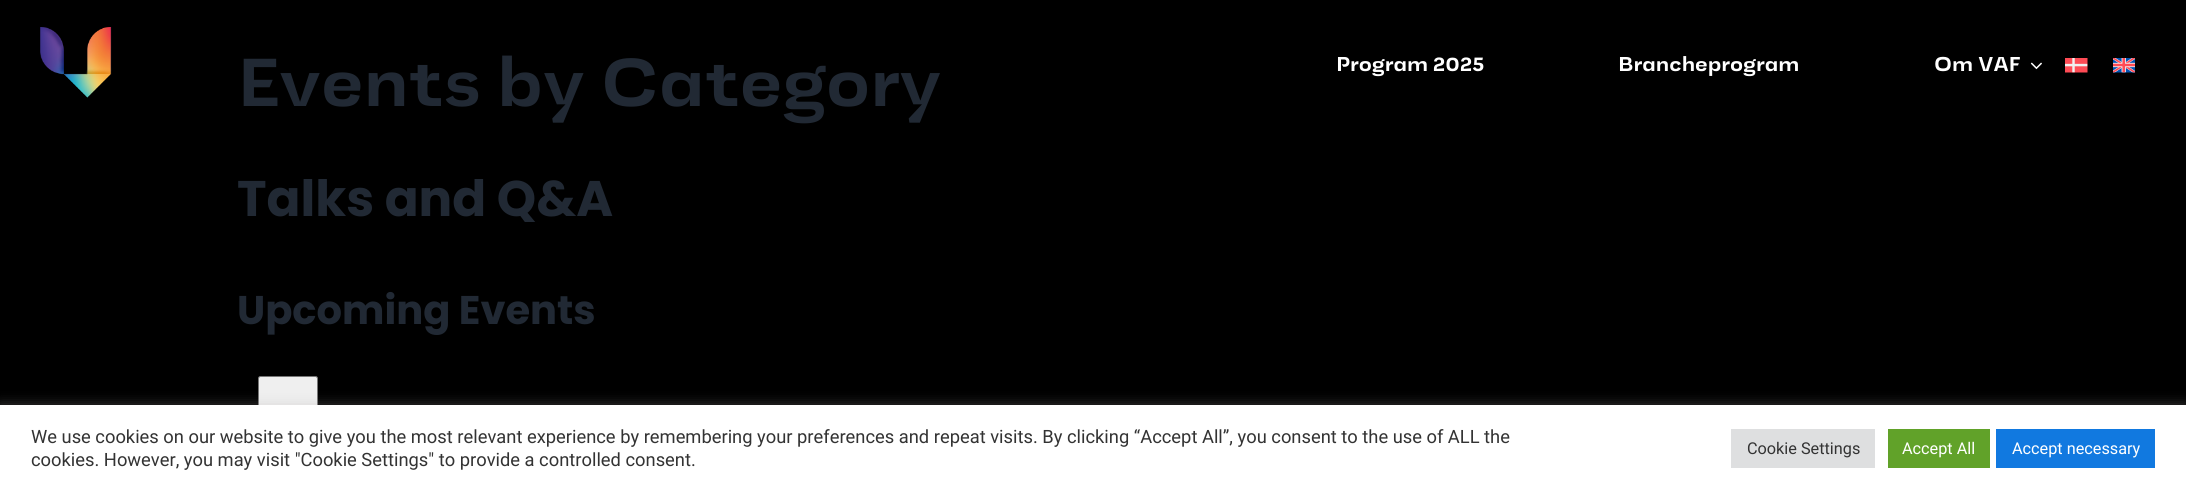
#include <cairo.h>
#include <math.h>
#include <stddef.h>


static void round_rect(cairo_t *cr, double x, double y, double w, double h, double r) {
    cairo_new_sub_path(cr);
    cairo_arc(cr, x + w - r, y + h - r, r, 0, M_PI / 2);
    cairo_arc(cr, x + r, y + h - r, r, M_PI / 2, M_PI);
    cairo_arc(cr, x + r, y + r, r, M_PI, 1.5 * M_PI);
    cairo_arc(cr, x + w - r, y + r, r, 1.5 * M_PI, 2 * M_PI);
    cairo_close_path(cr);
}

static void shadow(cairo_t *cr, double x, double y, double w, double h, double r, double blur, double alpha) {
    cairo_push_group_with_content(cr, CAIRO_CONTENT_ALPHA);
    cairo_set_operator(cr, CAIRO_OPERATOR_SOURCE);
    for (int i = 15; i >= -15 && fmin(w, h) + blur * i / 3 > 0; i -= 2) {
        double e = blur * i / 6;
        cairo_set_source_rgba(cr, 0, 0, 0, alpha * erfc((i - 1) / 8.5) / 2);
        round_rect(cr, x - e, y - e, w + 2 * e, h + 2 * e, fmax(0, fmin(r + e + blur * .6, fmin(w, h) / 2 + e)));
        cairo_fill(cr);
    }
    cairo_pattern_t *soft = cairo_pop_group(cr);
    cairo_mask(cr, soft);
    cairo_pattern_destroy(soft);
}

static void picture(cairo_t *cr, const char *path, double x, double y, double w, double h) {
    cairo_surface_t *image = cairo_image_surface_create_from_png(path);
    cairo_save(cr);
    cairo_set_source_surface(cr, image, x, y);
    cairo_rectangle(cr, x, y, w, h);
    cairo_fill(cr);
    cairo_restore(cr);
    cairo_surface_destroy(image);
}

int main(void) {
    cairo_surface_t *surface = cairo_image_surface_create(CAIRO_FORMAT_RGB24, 2186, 491);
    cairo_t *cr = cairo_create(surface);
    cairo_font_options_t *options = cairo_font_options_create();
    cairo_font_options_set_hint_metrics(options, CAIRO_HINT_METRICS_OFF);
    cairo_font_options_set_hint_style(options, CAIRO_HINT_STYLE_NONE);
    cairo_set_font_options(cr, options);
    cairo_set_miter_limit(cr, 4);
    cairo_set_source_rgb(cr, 0, 0, 0);
    cairo_paint(cr);
    cairo_select_font_face(cr, "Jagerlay", CAIRO_FONT_SLANT_NORMAL, CAIRO_FONT_WEIGHT_BOLD);
    cairo_set_font_size(cr, 67.5);
    cairo_set_source_rgb(cr, 0.129, 0.161, 0.204);
    cairo_move_to(cr, 237, 106);
    cairo_show_text(cr, "Events by Category");
    cairo_select_font_face(cr, "Poppins", CAIRO_FONT_SLANT_NORMAL, CAIRO_FONT_WEIGHT_BOLD);
    cairo_set_font_size(cr, 50);
    cairo_move_to(cr, 237, 216);
    cairo_show_text(cr, "Talks and Q&A");
    cairo_set_font_size(cr, 40);
    cairo_move_to(cr, 237, 324);
    cairo_show_text(cr, "Upcoming Events");
    cairo_set_source_rgb(cr, 0.937, 0.937, 0.937);
    round_rect(cr, 258.5, 376.5, 59, 107, 2);
    cairo_fill_preserve(cr);
    cairo_set_source_rgb(cr, 0.463, 0.463, 0.463);
    cairo_set_line_width(cr, 1);
    cairo_stroke(cr);
    picture(cr, "img1.png", 40, 27, 72, 71);
    cairo_select_font_face(cr, "Jagerlay", CAIRO_FONT_SLANT_NORMAL, CAIRO_FONT_WEIGHT_BOLD);
    cairo_set_font_size(cr, 20);
    cairo_set_source_rgb(cr, 1, 1, 1);
    cairo_move_to(cr, 1336, 71);
    cairo_show_text(cr, "Program 2025");
    cairo_move_to(cr, 1618, 71);
    cairo_show_text(cr, "Brancheprogram");
    cairo_move_to(cr, 1934, 71);
    cairo_show_text(cr, "Om VAF");
    picture(cr, "img2.png", 2030, 62, 12, 8);
    picture(cr, "img3.png", 2065, 58, 23, 15);
    picture(cr, "img4.png", 2113, 58, 22, 15);
    cairo_set_source_rgb(cr, 0.675, 0.671, 0.671);
    shadow(cr, 0, 404, 2186, 86, 0, 6, 0.3);
    cairo_set_source_rgb(cr, 1, 1, 1);
    cairo_rectangle(cr, 0, 405, 2186, 86);
    cairo_fill(cr);
    cairo_select_font_face(cr, "Roboto", CAIRO_FONT_SLANT_NORMAL, CAIRO_FONT_WEIGHT_NORMAL);
    cairo_set_font_size(cr, 18.33);
    cairo_set_source_rgb(cr, 0.2, 0.2, 0.2);
    cairo_move_to(cr, 31, 443);
    cairo_show_text(cr, "We use cookies on our website to give you the most relevant experience by remembering your preferences and repeat visits. By clicking “Accept All”, you consent to the use of ALL the");
    cairo_move_to(cr, 31, 466);
    cairo_show_text(cr, "cookies. However, you may visit \"Cookie Settings\" to provide a controlled consent.");
    cairo_set_source_rgb(cr, 0.871, 0.875, 0.878);
    cairo_rectangle(cr, 1731, 429, 144, 39);
    cairo_fill(cr);
    cairo_set_font_size(cr, 16.25);
    cairo_set_source_rgb(cr, 0.2, 0.2, 0.2);
    cairo_move_to(cr, 1747, 454);
    cairo_show_text(cr, "Cookie Settings");
    cairo_set_source_rgb(cr, 0.38, 0.635, 0.161);
    cairo_rectangle(cr, 1888, 429, 102, 39);
    cairo_fill(cr);
    cairo_set_source_rgb(cr, 1, 1, 1);
    cairo_move_to(cr, 1902, 454);
    cairo_show_text(cr, "Accept All");
    cairo_set_source_rgb(cr, 0.067, 0.475, 0.878);
    cairo_rectangle(cr, 1996, 429, 159, 39);
    cairo_fill(cr);
    cairo_set_source_rgb(cr, 1, 1, 1);
    cairo_move_to(cr, 2012, 454);
    cairo_show_text(cr, "Accept necessary");
    cairo_surface_write_to_png(surface, "page.png");
    cairo_font_options_destroy(options);
    cairo_destroy(cr);
    cairo_surface_destroy(surface);
    return 0;
}
